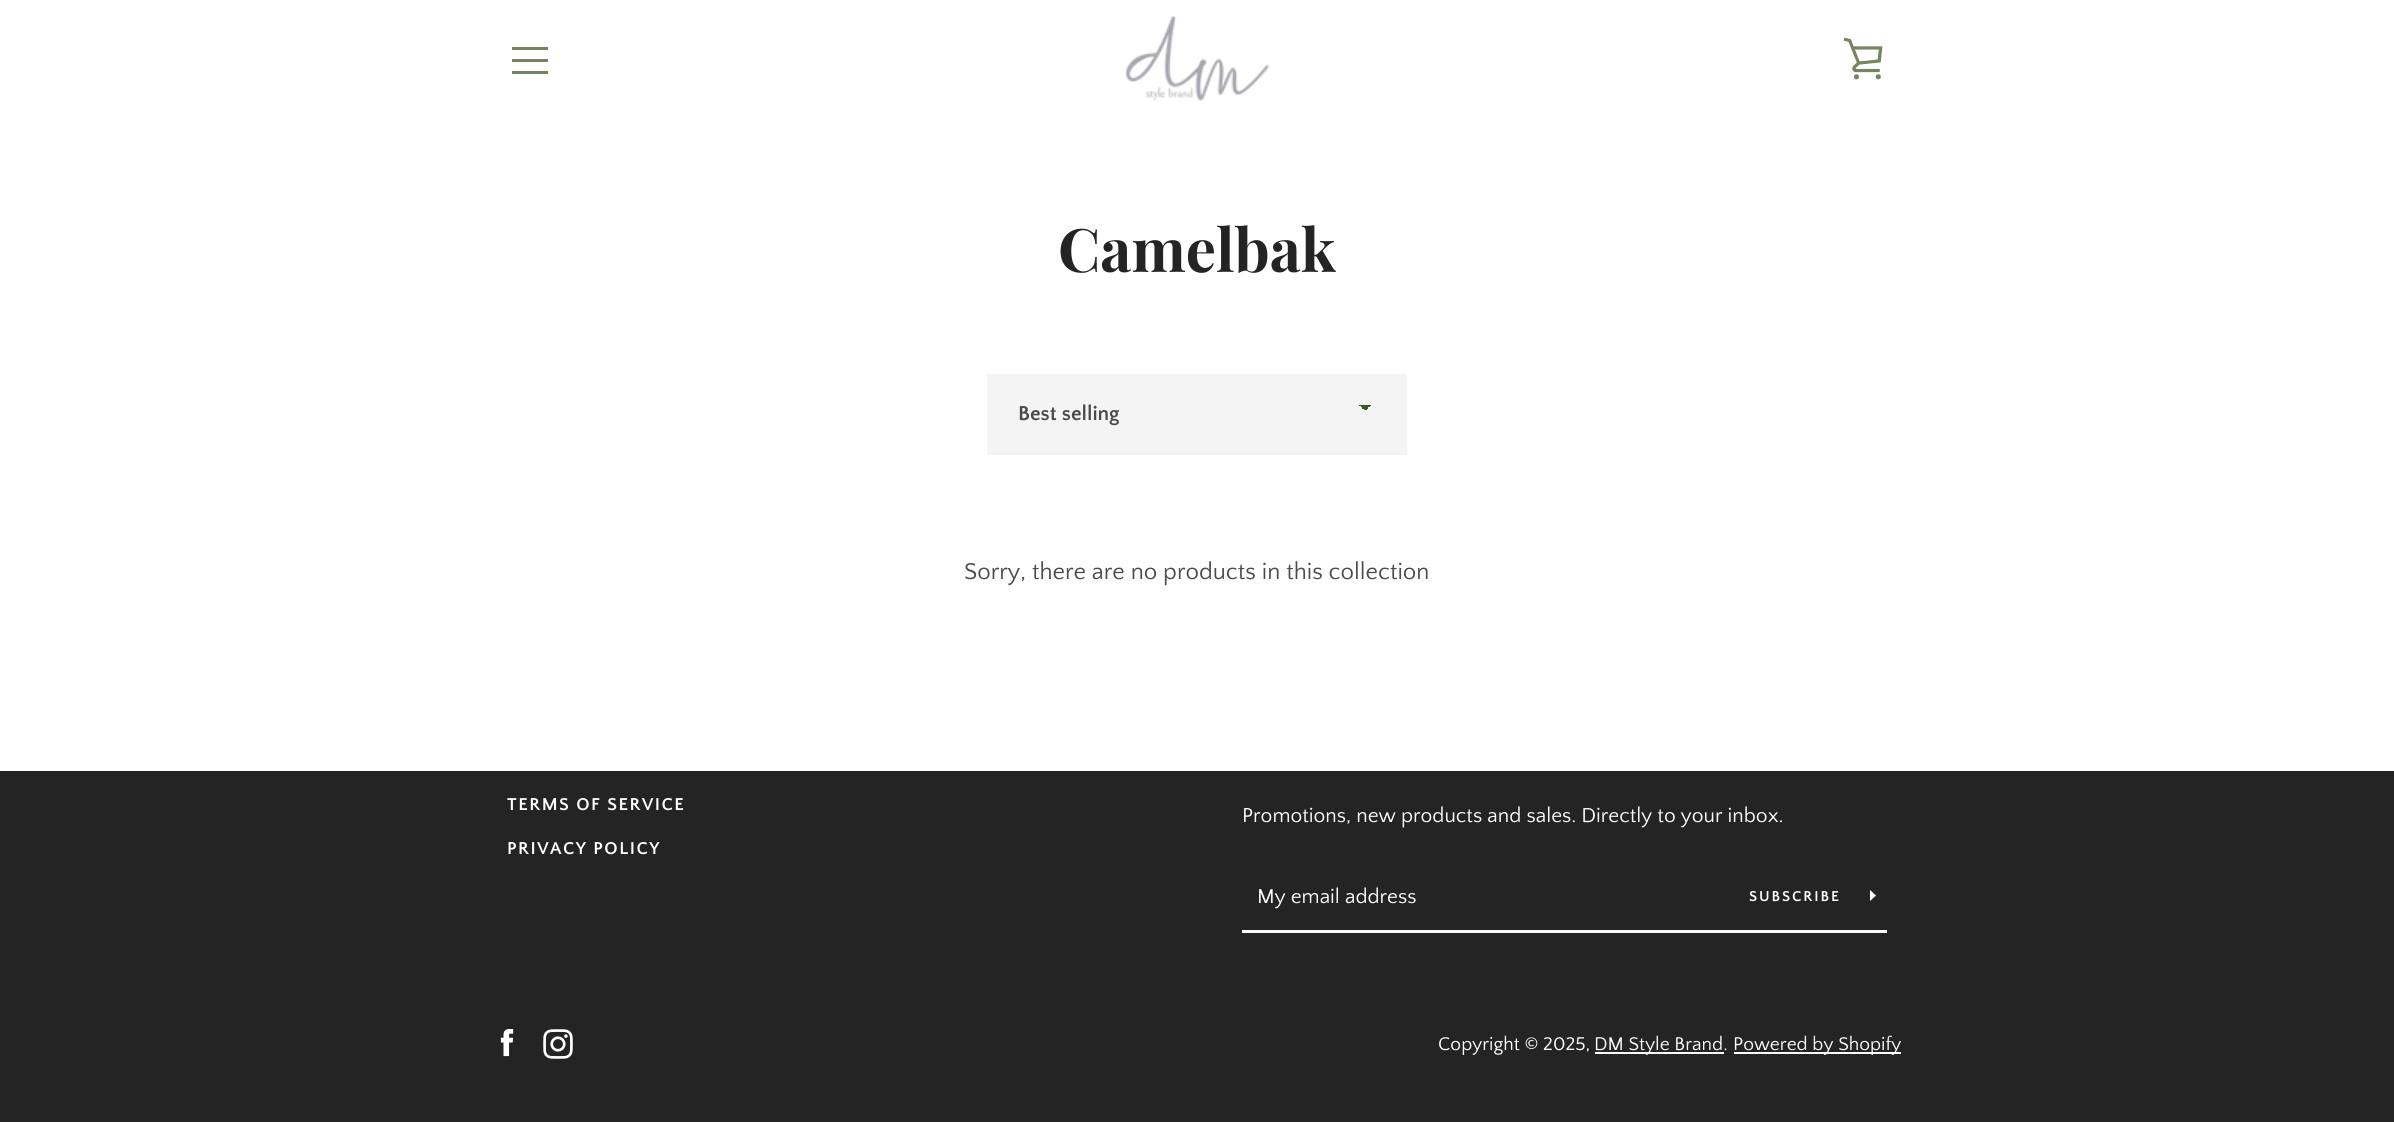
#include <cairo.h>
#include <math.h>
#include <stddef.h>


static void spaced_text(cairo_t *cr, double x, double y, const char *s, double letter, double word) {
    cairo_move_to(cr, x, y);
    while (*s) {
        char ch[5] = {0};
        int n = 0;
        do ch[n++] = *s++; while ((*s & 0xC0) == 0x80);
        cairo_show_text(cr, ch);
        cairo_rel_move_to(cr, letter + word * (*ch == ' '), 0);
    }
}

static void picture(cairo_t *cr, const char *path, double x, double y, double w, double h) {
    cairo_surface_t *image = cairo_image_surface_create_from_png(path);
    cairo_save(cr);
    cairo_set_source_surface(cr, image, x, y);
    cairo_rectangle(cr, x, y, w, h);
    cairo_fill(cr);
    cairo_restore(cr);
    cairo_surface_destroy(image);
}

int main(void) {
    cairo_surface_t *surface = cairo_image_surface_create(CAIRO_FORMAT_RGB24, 2394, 1122);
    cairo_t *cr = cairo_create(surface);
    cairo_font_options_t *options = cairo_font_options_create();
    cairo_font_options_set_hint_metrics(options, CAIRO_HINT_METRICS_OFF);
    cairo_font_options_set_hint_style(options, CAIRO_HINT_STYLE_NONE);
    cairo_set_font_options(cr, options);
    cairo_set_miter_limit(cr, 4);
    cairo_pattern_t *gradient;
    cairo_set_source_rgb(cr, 1, 1, 1);
    cairo_paint(cr);
    cairo_set_source_rgb(cr, 0.459, 0.522, 0.376);
    cairo_rectangle(cr, 512, 47, 36, 3);
    cairo_fill(cr);
    cairo_rectangle(cr, 512, 59, 36, 3);
    cairo_fill(cr);
    cairo_rectangle(cr, 512, 71, 36, 3);
    cairo_fill(cr);
    picture(cr, "img1.png", 1125, 15, 145, 86);
    picture(cr, "img2.png", 1844, 37, 39, 43);
    cairo_select_font_face(cr, "Playfair Display", CAIRO_FONT_SLANT_NORMAL, CAIRO_FONT_WEIGHT_BOLD);
    cairo_set_font_size(cr, 60);
    cairo_set_source_rgb(cr, 0.141, 0.141, 0.141);
    cairo_move_to(cr, 1058, 272);
    cairo_show_text(cr, "Camelbak");
    cairo_set_source_rgb(cr, 0.953, 0.957, 0.953);
    cairo_rectangle(cr, 987, 374, 420, 81);
    cairo_fill(cr);
    gradient = cairo_pattern_create_linear(1365, 405, 1371, 411);
    cairo_pattern_add_color_stop_rgba(gradient, 0.5, 0.235, 0.337, 0.161, 1);
    cairo_pattern_add_color_stop_rgba(gradient, 0.5, 0.953, 0.957, 0.953, 1);
    cairo_set_source(cr, gradient);
    cairo_pattern_destroy(gradient);
    cairo_rectangle(cr, 1365, 405, 6, 5);
    cairo_fill(cr);
    gradient = cairo_pattern_create_linear(1359, 411, 1365, 405);
    cairo_pattern_add_color_stop_rgba(gradient, 0.5, 0.953, 0.957, 0.953, 1);
    cairo_pattern_add_color_stop_rgba(gradient, 0.5, 0.235, 0.337, 0.161, 1);
    cairo_set_source(cr, gradient);
    cairo_pattern_destroy(gradient);
    cairo_rectangle(cr, 1359, 405, 6, 5);
    cairo_fill(cr);
    cairo_select_font_face(cr, "Quattrocento Sans", CAIRO_FONT_SLANT_NORMAL, CAIRO_FONT_WEIGHT_BOLD);
    cairo_set_font_size(cr, 21);
    cairo_set_source_rgb(cr, 0.29, 0.29, 0.29);
    cairo_move_to(cr, 1018, 420);
    cairo_show_text(cr, "Best selling");
    cairo_select_font_face(cr, "Quattrocento Sans", CAIRO_FONT_SLANT_NORMAL, CAIRO_FONT_WEIGHT_NORMAL);
    cairo_set_font_size(cr, 24);
    cairo_move_to(cr, 964, 579);
    cairo_show_text(cr, "Sorry, there are no products in this collection");
    cairo_set_source_rgb(cr, 0.141, 0.141, 0.141);
    cairo_rectangle(cr, 0, 771, 2394, 351);
    cairo_fill(cr);
    cairo_select_font_face(cr, "Quattrocento Sans", CAIRO_FONT_SLANT_NORMAL, CAIRO_FONT_WEIGHT_BOLD);
    cairo_set_font_size(cr, 18);
    cairo_set_source_rgb(cr, 1, 1, 1);
    spaced_text(cr, 507, 810, "TERMS OF SERVICE", 1.5, 0);
    spaced_text(cr, 507, 854, "PRIVACY POLICY", 1.5, 0);
    cairo_select_font_face(cr, "Quattrocento Sans", CAIRO_FONT_SLANT_NORMAL, CAIRO_FONT_WEIGHT_NORMAL);
    cairo_set_font_size(cr, 21);
    cairo_move_to(cr, 1242, 822);
    cairo_show_text(cr, "Promotions, new products and sales. Directly to your inbox.");
    cairo_rectangle(cr, 1242, 930, 645, 3);
    cairo_fill(cr);
    cairo_move_to(cr, 1257, 903);
    cairo_show_text(cr, "My email address");
    cairo_select_font_face(cr, "Quattrocento Sans", CAIRO_FONT_SLANT_NORMAL, CAIRO_FONT_WEIGHT_BOLD);
    cairo_set_font_size(cr, 15);
    spaced_text(cr, 1749, 901, "SUBSCRIBE", 1.9, 0);
    cairo_new_path(cr);
    cairo_move_to(cr, 1876, 895.5);
    cairo_line_to(cr, 1870, 901);
    cairo_line_to(cr, 1870, 890);
    cairo_close_path(cr);
    cairo_fill(cr);
    picture(cr, "img3.png", 500, 1029, 14, 28);
    picture(cr, "img4.png", 543, 1029, 30, 30);
    cairo_select_font_face(cr, "Quattrocento Sans", CAIRO_FONT_SLANT_NORMAL, CAIRO_FONT_WEIGHT_NORMAL);
    cairo_set_font_size(cr, 19.25);
    cairo_move_to(cr, 1438, 1050);
    cairo_show_text(cr, "Copyright © 2025,");
    cairo_rectangle(cr, 1595, 1052, 129, 2);
    cairo_fill(cr);
    cairo_move_to(cr, 1594, 1050);
    cairo_show_text(cr, "DM Style Brand.");
    cairo_rectangle(cr, 1734, 1052, 167, 2);
    cairo_fill(cr);
    cairo_move_to(cr, 1733, 1050);
    cairo_show_text(cr, "Powered by Shopify");
    cairo_surface_write_to_png(surface, "page.png");
    cairo_font_options_destroy(options);
    cairo_destroy(cr);
    cairo_surface_destroy(surface);
    return 0;
}
